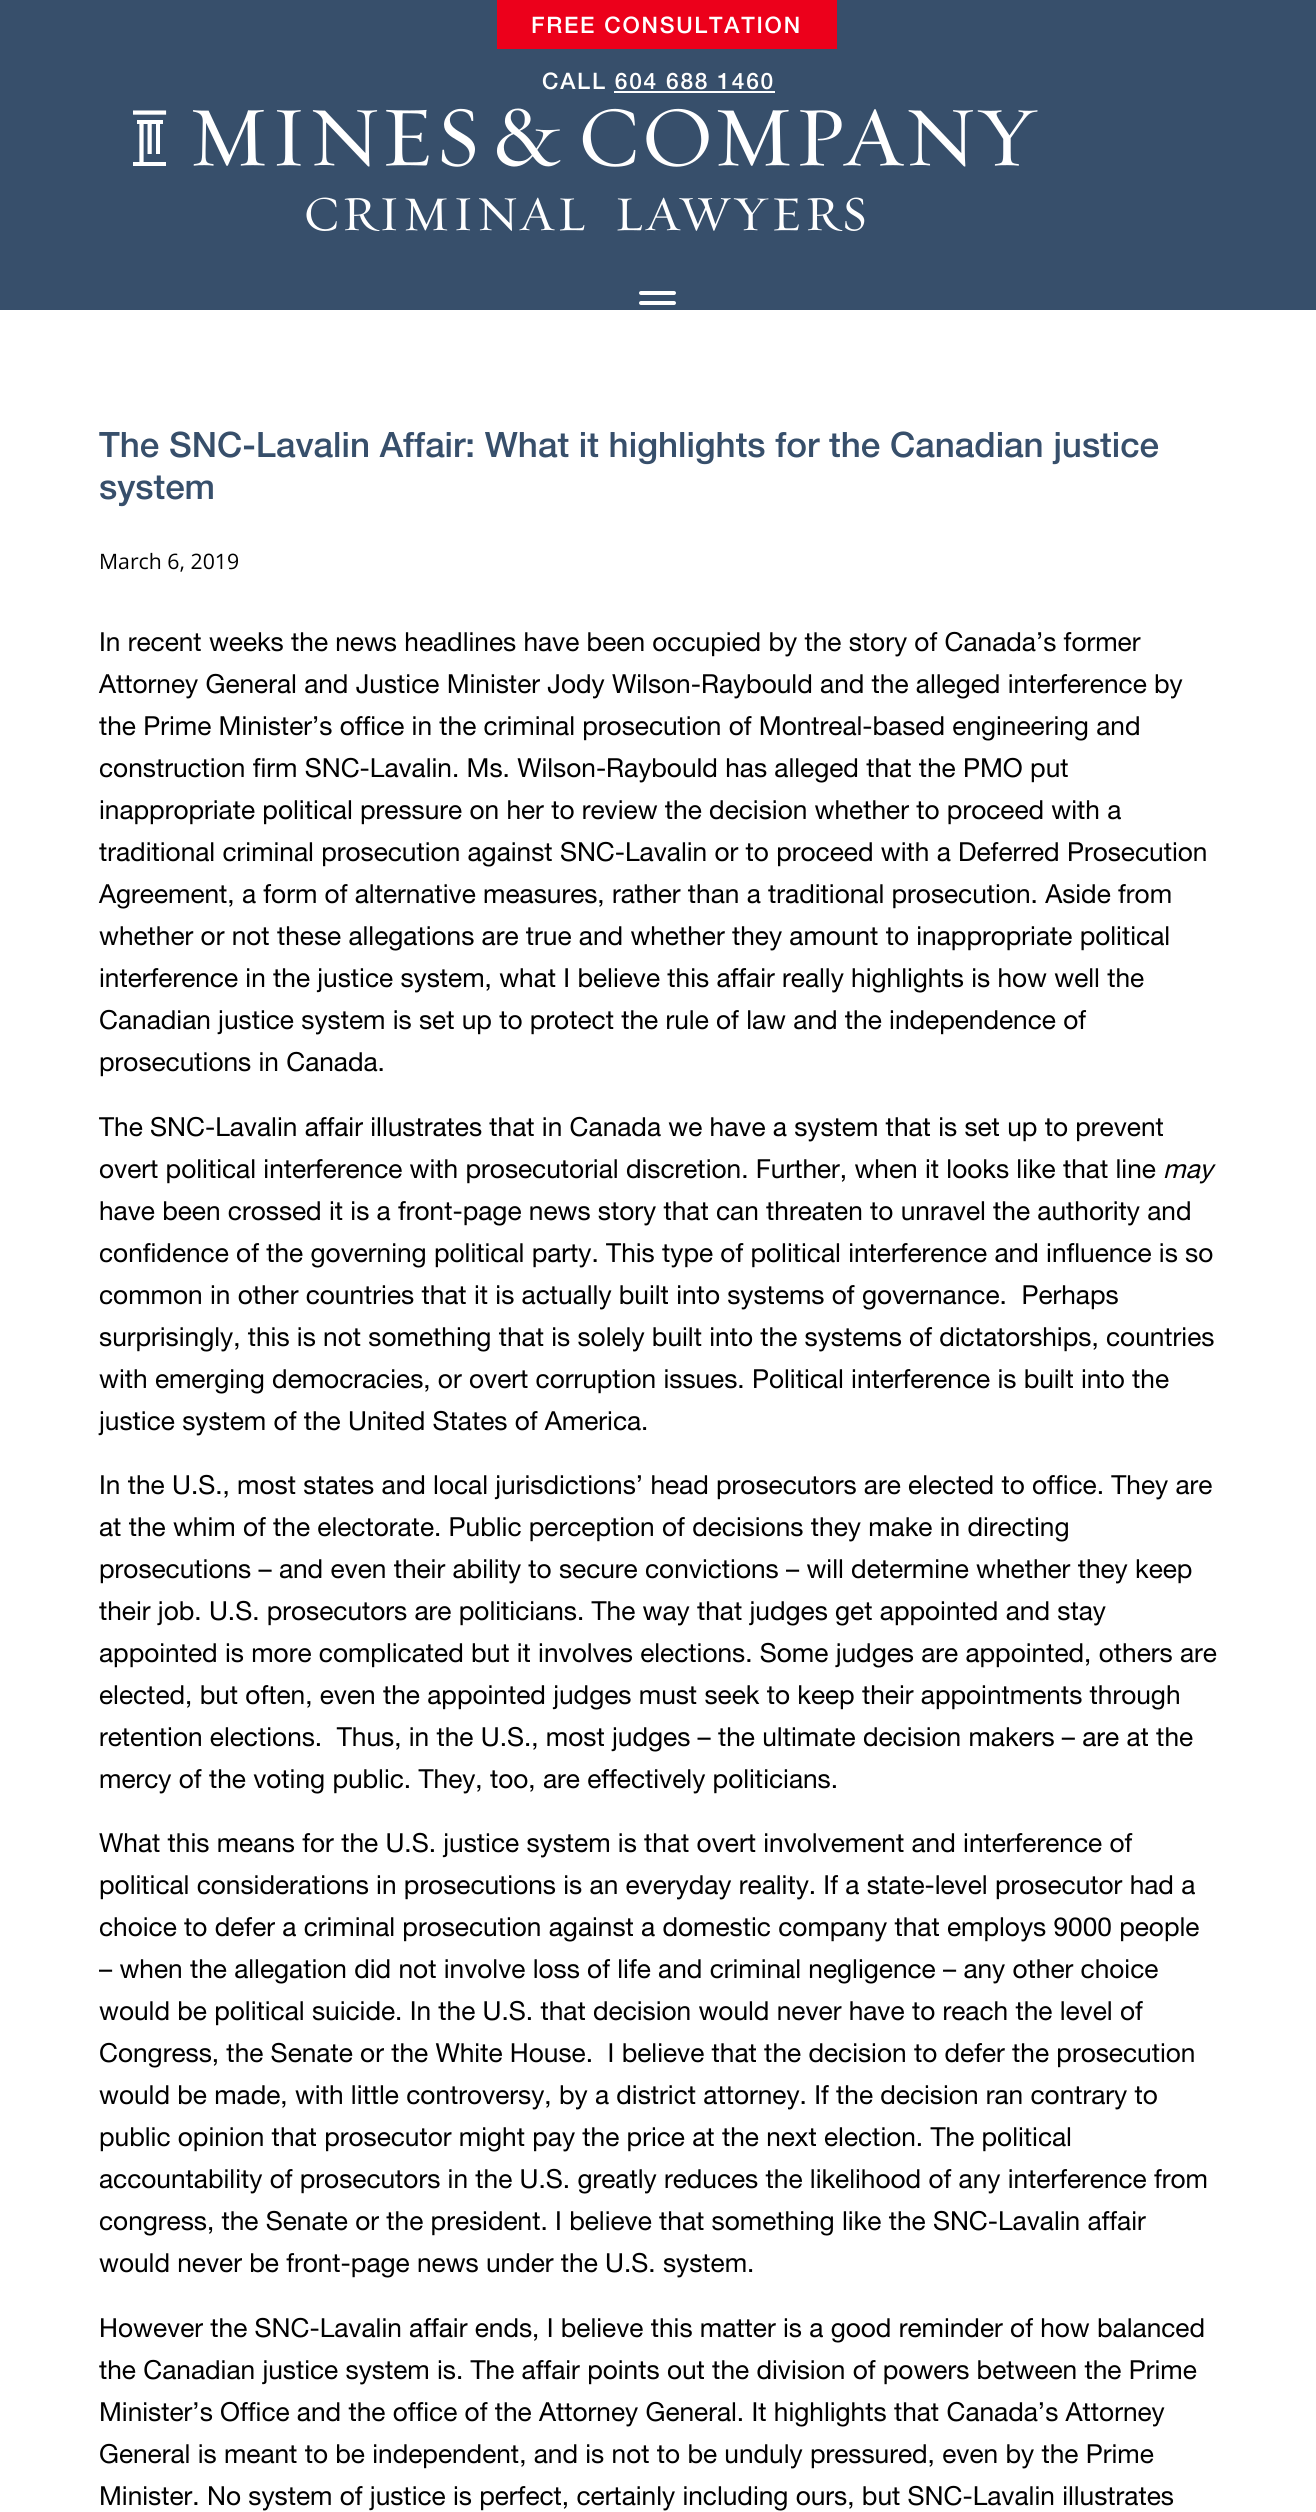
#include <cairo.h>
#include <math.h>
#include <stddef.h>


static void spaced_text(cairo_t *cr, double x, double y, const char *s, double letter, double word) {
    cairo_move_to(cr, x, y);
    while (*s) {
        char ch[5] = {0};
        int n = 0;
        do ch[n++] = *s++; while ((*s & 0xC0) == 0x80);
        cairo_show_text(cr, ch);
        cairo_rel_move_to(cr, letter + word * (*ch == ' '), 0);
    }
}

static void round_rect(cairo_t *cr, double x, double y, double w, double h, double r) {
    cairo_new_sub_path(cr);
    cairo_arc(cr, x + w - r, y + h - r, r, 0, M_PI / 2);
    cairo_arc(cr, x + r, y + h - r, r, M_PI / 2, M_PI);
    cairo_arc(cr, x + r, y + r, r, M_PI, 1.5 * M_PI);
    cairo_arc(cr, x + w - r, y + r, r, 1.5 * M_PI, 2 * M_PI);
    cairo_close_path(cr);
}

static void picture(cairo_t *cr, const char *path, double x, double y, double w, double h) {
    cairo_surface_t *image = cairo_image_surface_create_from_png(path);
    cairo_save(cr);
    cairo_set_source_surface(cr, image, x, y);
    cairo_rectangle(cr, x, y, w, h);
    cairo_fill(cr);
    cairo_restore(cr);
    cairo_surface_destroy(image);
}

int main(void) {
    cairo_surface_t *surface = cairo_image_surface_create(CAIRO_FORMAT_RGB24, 1316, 2512);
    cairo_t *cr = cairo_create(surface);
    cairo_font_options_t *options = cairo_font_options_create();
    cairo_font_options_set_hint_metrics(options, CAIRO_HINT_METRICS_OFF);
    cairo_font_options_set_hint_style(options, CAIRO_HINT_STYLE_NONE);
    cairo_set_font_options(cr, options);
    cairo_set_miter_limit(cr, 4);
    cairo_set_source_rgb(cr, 1, 1, 1);
    cairo_paint(cr);
    cairo_set_source_rgb(cr, 0.216, 0.31, 0.42);
    cairo_rectangle(cr, 0, 0, 1316, 310);
    cairo_fill(cr);
    picture(cr, "img1.png", 133, 108, 905, 123);
    cairo_set_source_rgb(cr, 1, 1, 1);
    round_rect(cr, 639, 301, 37, 4, 2);
    cairo_fill(cr);
    round_rect(cr, 639, 291, 37, 4, 2);
    cairo_fill(cr);
    cairo_set_source_rgb(cr, 0.922, 0, 0.106);
    cairo_rectangle(cr, 497, 0, 340, 49);
    cairo_fill(cr);
    cairo_select_font_face(cr, "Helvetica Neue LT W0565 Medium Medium", CAIRO_FONT_SLANT_NORMAL, CAIRO_FONT_WEIGHT_NORMAL);
    cairo_set_font_size(cr, 22.75);
    cairo_set_source_rgb(cr, 1, 1, 1);
    spaced_text(cr, 531, 33, "FREE CONSULTATION", 1.75, 0);
    spaced_text(cr, 542, 89, "CALL 604 688 1460", 1.75, 0);
    cairo_rectangle(cr, 614, 91, 161, 2);
    cairo_fill(cr);
    cairo_set_font_size(cr, 35);
    cairo_set_source_rgb(cr, 0.216, 0.31, 0.42);
    cairo_move_to(cr, 99, 457);
    cairo_show_text(cr, "The SNC-Lavalin Affair: What it highlights for the Canadian justice");
    cairo_move_to(cr, 99, 499);
    cairo_show_text(cr, "system");
    cairo_select_font_face(cr, "Open Sans", CAIRO_FONT_SLANT_NORMAL, CAIRO_FONT_WEIGHT_NORMAL);
    cairo_set_font_size(cr, 21.25);
    cairo_set_source_rgb(cr, 0, 0, 0);
    cairo_move_to(cr, 99, 569);
    cairo_show_text(cr, "March 6, 2019");
    cairo_select_font_face(cr, "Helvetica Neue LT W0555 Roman", CAIRO_FONT_SLANT_NORMAL, CAIRO_FONT_WEIGHT_NORMAL);
    cairo_set_font_size(cr, 26.25);
    cairo_move_to(cr, 99, 651);
    cairo_show_text(cr, "In recent weeks the news headlines have been occupied by the story of Canada’s former");
    cairo_move_to(cr, 99, 693);
    cairo_show_text(cr, "Attorney General and Justice Minister Jody Wilson-Raybould and the alleged interference by");
    cairo_move_to(cr, 99, 735);
    cairo_show_text(cr, "the Prime Minister’s office in the criminal prosecution of Montreal-based engineering and");
    cairo_move_to(cr, 99, 777);
    cairo_show_text(cr, "construction firm SNC-Lavalin. Ms. Wilson-Raybould has alleged that the PMO put");
    cairo_move_to(cr, 99, 819);
    cairo_show_text(cr, "inappropriate political pressure on her to review the decision whether to proceed with a");
    cairo_move_to(cr, 99, 861);
    cairo_show_text(cr, "traditional criminal prosecution against SNC-Lavalin or to proceed with a Deferred Prosecution");
    cairo_move_to(cr, 99, 903);
    cairo_show_text(cr, "Agreement, a form of alternative measures, rather than a traditional prosecution. Aside from");
    cairo_move_to(cr, 99, 945);
    cairo_show_text(cr, "whether or not these allegations are true and whether they amount to inappropriate political");
    cairo_move_to(cr, 99, 987);
    cairo_show_text(cr, "interference in the justice system, what I believe this affair really highlights is how well the");
    cairo_move_to(cr, 99, 1029);
    cairo_show_text(cr, "Canadian justice system is set up to protect the rule of law and the independence of");
    cairo_move_to(cr, 99, 1071);
    cairo_show_text(cr, "prosecutions in Canada.");
    cairo_move_to(cr, 99, 1136);
    cairo_show_text(cr, "The SNC-Lavalin affair illustrates that in Canada we have a system that is set up to prevent");
    cairo_move_to(cr, 99, 1178);
    cairo_show_text(cr, "overt political interference with prosecutorial discretion. Further, when it looks like that line");
    cairo_select_font_face(cr, "Helvetica Neue LT W0555 Roman", CAIRO_FONT_SLANT_ITALIC, CAIRO_FONT_WEIGHT_NORMAL);
    cairo_move_to(cr, 1163, 1178);
    cairo_show_text(cr, "may");
    cairo_select_font_face(cr, "Helvetica Neue LT W0555 Roman", CAIRO_FONT_SLANT_NORMAL, CAIRO_FONT_WEIGHT_NORMAL);
    cairo_move_to(cr, 99, 1220);
    cairo_show_text(cr, "have been crossed it is a front-page news story that can threaten to unravel the authority and");
    cairo_move_to(cr, 99, 1262);
    cairo_show_text(cr, "confidence of the governing political party. This type of political interference and influence is so");
    cairo_move_to(cr, 99, 1304);
    cairo_show_text(cr, "common in other countries that it is actually built into systems of governance.  Perhaps");
    cairo_move_to(cr, 99, 1346);
    cairo_show_text(cr, "surprisingly, this is not something that is solely built into the systems of dictatorships, countries");
    cairo_move_to(cr, 99, 1388);
    cairo_show_text(cr, "with emerging democracies, or overt corruption issues. Political interference is built into the");
    cairo_move_to(cr, 99, 1430);
    cairo_show_text(cr, "justice system of the United States of America.");
    cairo_move_to(cr, 99, 1494);
    cairo_show_text(cr, "In the U.S., most states and local jurisdictions’ head prosecutors are elected to office. They are");
    cairo_move_to(cr, 99, 1536);
    cairo_show_text(cr, "at the whim of the electorate. Public perception of decisions they make in directing");
    cairo_move_to(cr, 99, 1578);
    cairo_show_text(cr, "prosecutions – and even their ability to secure convictions – will determine whether they keep");
    cairo_move_to(cr, 99, 1620);
    cairo_show_text(cr, "their job. U.S. prosecutors are politicians. The way that judges get appointed and stay");
    cairo_move_to(cr, 99, 1662);
    cairo_show_text(cr, "appointed is more complicated but it involves elections. Some judges are appointed, others are");
    cairo_move_to(cr, 99, 1704);
    cairo_show_text(cr, "elected, but often, even the appointed judges must seek to keep their appointments through");
    cairo_move_to(cr, 99, 1746);
    cairo_show_text(cr, "retention elections.  Thus, in the U.S., most judges – the ultimate decision makers – are at the");
    cairo_move_to(cr, 99, 1788);
    cairo_show_text(cr, "mercy of the voting public. They, too, are effectively politicians.");
    cairo_move_to(cr, 99, 1852);
    cairo_show_text(cr, "What this means for the U.S. justice system is that overt involvement and interference of");
    cairo_move_to(cr, 99, 1894);
    cairo_show_text(cr, "political considerations in prosecutions is an everyday reality. If a state-level prosecutor had a");
    cairo_move_to(cr, 99, 1936);
    cairo_show_text(cr, "choice to defer a criminal prosecution against a domestic company that employs 9000 people");
    cairo_move_to(cr, 99, 1978);
    cairo_show_text(cr, "– when the allegation did not involve loss of life and criminal negligence – any other choice");
    cairo_move_to(cr, 99, 2020);
    cairo_show_text(cr, "would be political suicide. In the U.S. that decision would never have to reach the level of");
    cairo_move_to(cr, 99, 2062);
    cairo_show_text(cr, "Congress, the Senate or the White House.  I believe that the decision to defer the prosecution");
    cairo_move_to(cr, 99, 2104);
    cairo_show_text(cr, "would be made, with little controversy, by a district attorney. If the decision ran contrary to");
    cairo_move_to(cr, 99, 2146);
    cairo_show_text(cr, "public opinion that prosecutor might pay the price at the next election. The political");
    cairo_move_to(cr, 99, 2188);
    cairo_show_text(cr, "accountability of prosecutors in the U.S. greatly reduces the likelihood of any interference from");
    cairo_move_to(cr, 99, 2230);
    cairo_show_text(cr, "congress, the Senate or the president. I believe that something like the SNC-Lavalin affair");
    cairo_move_to(cr, 99, 2272);
    cairo_show_text(cr, "would never be front-page news under the U.S. system.");
    cairo_move_to(cr, 99, 2337);
    cairo_show_text(cr, "However the SNC-Lavalin affair ends, I believe this matter is a good reminder of how balanced");
    cairo_move_to(cr, 99, 2379);
    cairo_show_text(cr, "the Canadian justice system is. The affair points out the division of powers between the Prime");
    cairo_move_to(cr, 99, 2421);
    cairo_show_text(cr, "Minister’s Office and the office of the Attorney General. It highlights that Canada’s Attorney");
    cairo_move_to(cr, 99, 2463);
    cairo_show_text(cr, "General is meant to be independent, and is not to be unduly pressured, even by the Prime");
    cairo_move_to(cr, 99, 2505);
    cairo_show_text(cr, "Minister. No system of justice is perfect, certainly including ours, but SNC-Lavalin illustrates");
    cairo_surface_write_to_png(surface, "page.png");
    cairo_font_options_destroy(options);
    cairo_destroy(cr);
    cairo_surface_destroy(surface);
    return 0;
}
